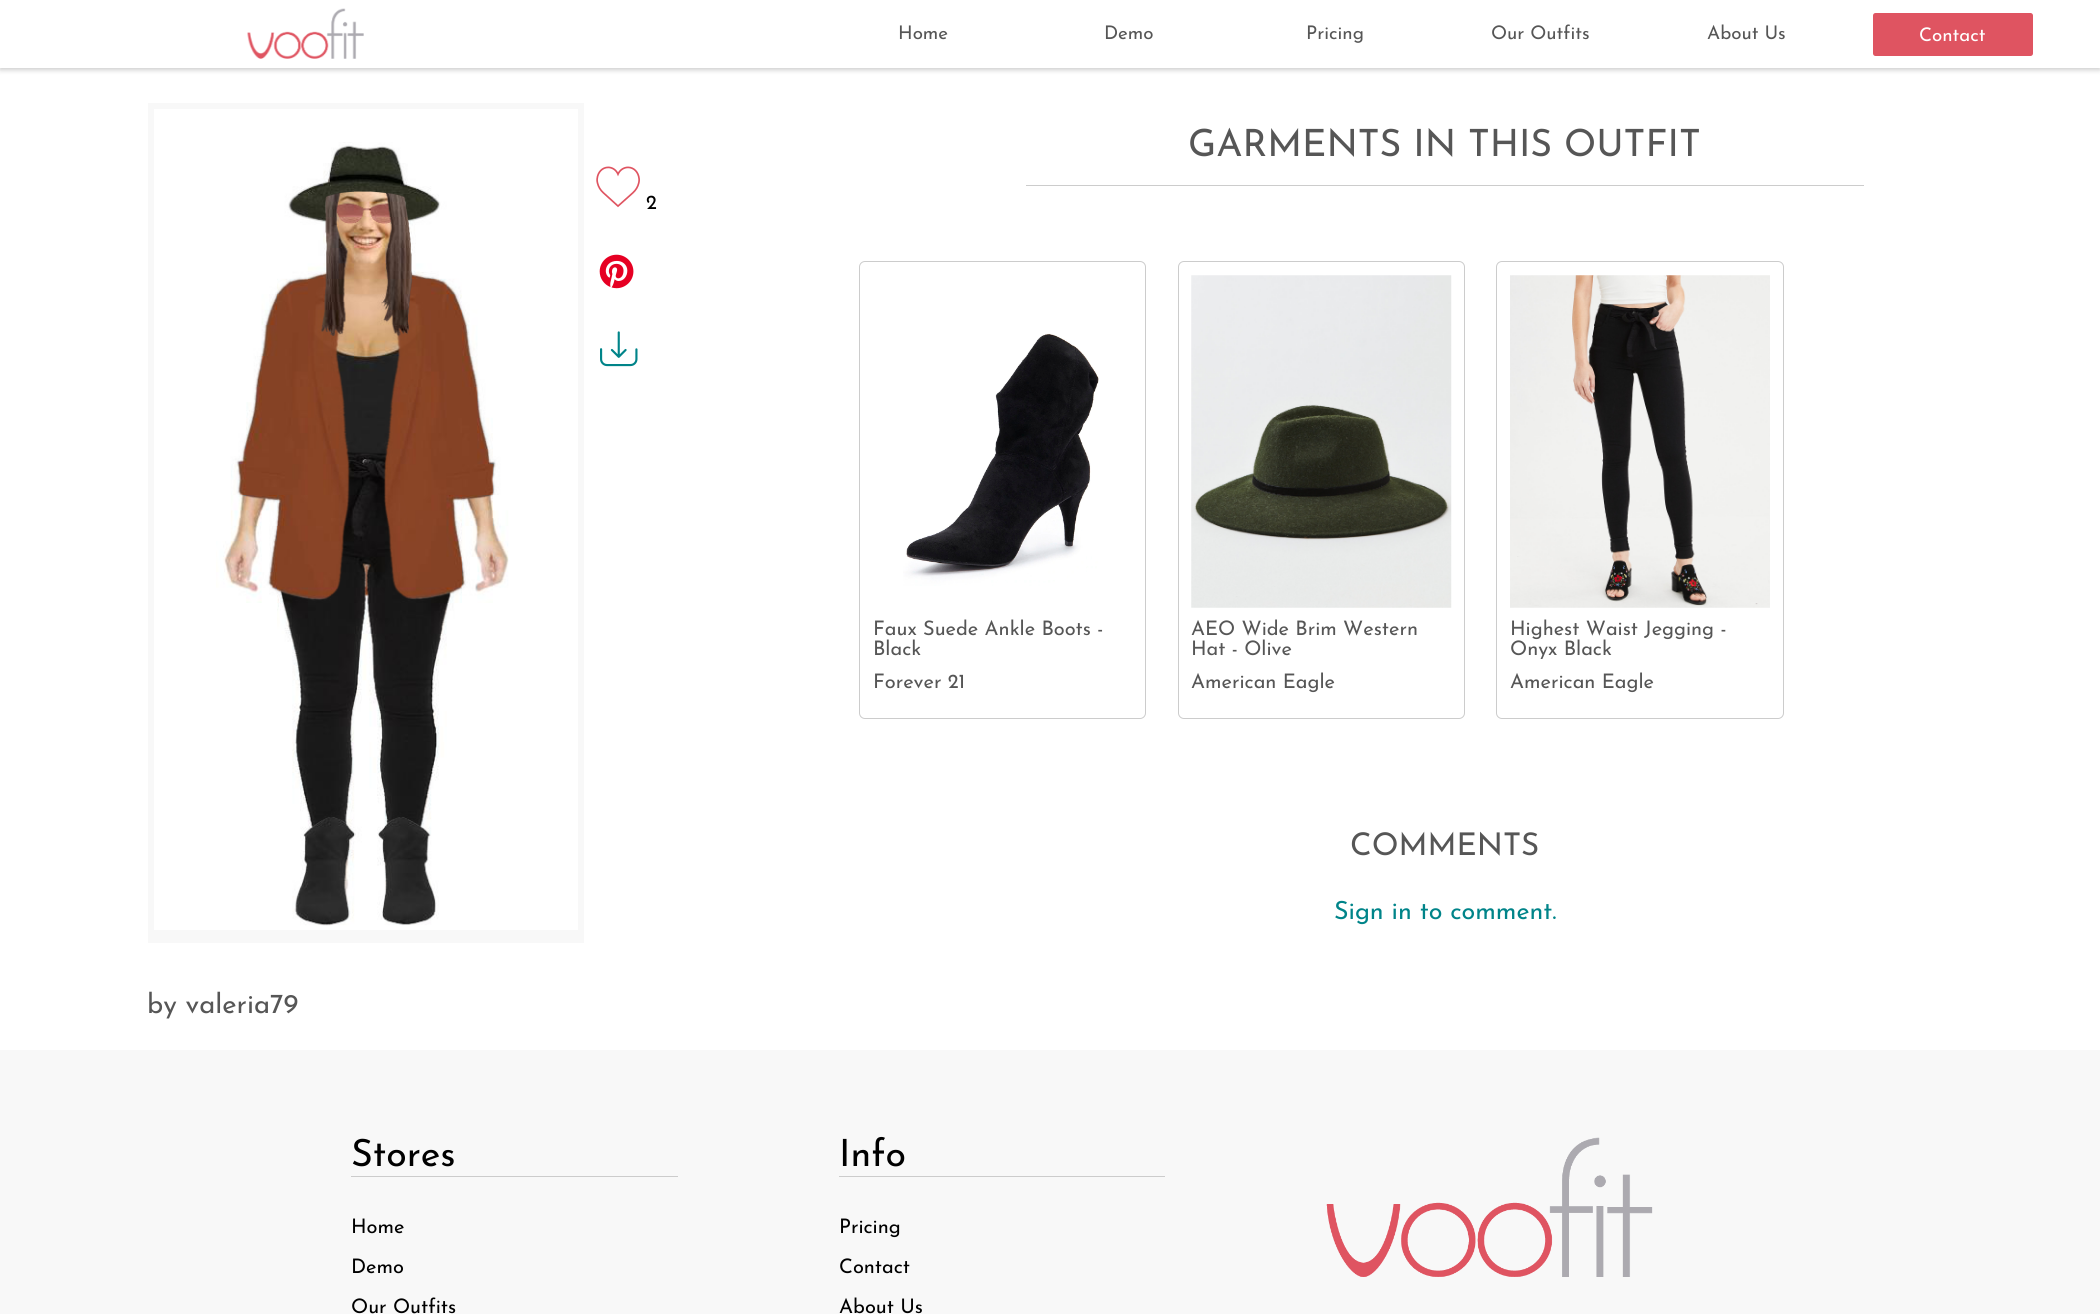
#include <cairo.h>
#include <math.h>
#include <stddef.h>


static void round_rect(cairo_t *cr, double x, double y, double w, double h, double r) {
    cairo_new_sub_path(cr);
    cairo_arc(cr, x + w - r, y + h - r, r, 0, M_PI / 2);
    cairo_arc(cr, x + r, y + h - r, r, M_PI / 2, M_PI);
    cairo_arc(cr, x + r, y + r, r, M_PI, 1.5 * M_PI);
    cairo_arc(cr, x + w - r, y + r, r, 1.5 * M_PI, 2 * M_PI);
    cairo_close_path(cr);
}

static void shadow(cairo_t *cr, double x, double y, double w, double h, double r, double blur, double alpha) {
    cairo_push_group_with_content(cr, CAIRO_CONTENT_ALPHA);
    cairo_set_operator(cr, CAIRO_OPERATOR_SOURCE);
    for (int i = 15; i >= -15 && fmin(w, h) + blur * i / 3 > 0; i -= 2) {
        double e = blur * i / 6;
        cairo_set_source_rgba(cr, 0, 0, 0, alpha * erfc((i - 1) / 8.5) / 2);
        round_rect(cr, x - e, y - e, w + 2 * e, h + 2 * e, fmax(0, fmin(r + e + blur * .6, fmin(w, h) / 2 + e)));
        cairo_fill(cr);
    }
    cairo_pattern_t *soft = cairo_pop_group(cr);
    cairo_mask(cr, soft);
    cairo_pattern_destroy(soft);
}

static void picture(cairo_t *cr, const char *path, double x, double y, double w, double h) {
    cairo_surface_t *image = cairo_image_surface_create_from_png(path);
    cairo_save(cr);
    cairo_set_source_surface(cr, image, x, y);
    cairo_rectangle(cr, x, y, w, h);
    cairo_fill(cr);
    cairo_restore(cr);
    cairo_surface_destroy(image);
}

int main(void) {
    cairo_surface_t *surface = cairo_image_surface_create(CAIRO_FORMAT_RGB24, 2100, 1314);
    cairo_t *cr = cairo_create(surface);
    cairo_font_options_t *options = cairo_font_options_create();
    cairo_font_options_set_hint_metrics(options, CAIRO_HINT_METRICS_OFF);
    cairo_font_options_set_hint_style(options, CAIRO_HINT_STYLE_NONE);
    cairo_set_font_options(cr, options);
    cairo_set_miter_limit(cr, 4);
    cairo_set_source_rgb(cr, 1, 1, 1);
    cairo_paint(cr);
    cairo_set_source_rgb(cr, 0, 0, 0);
    shadow(cr, 0, 3, 2100, 67, 0, 2.5, 0.2);
    cairo_set_source_rgb(cr, 1, 1, 1);
    cairo_rectangle(cr, 0, 0, 2100, 68);
    cairo_fill(cr);
    picture(cr, "img1.png", 247, 8, 117, 51);
    cairo_select_font_face(cr, "Josefin Sans Thin", CAIRO_FONT_SLANT_NORMAL, CAIRO_FONT_WEIGHT_NORMAL);
    cairo_set_font_size(cr, 18.75);
    cairo_set_source_rgb(cr, 0.337, 0.337, 0.337);
    cairo_move_to(cr, 898, 39);
    cairo_show_text(cr, "Home");
    cairo_move_to(cr, 1104, 39);
    cairo_show_text(cr, "Demo");
    cairo_move_to(cr, 1306, 39);
    cairo_show_text(cr, "Pricing");
    cairo_move_to(cr, 1491, 39);
    cairo_show_text(cr, "Our Outfits");
    cairo_move_to(cr, 1707, 39);
    cairo_show_text(cr, "About Us");
    cairo_set_source_rgb(cr, 0.875, 0.329, 0.38);
    round_rect(cr, 1873, 13, 160, 43, 2.5);
    cairo_fill(cr);
    cairo_set_source_rgb(cr, 1, 1, 1);
    cairo_move_to(cr, 1919, 41);
    cairo_show_text(cr, "Contact");
    cairo_set_source_rgb(cr, 0.969, 0.969, 0.969);
    cairo_rectangle(cr, 148, 103, 436, 6);
    cairo_fill(cr);
    cairo_rectangle(cr, 578, 103, 6, 827);
    cairo_fill(cr);
    cairo_rectangle(cr, 154, 930, 430, 13);
    cairo_fill(cr);
    cairo_rectangle(cr, 148, 103, 6, 840);
    cairo_fill(cr);
    picture(cr, "img2.png", 216, 142, 293, 784);
    picture(cr, "img3.png", 596, 166, 44, 42);
    cairo_set_font_size(cr, 20);
    cairo_set_source_rgb(cr, 0, 0, 0);
    cairo_move_to(cr, 646, 209);
    cairo_show_text(cr, "2");
    picture(cr, "img4.png", 599, 254, 35, 35);
    picture(cr, "img5.png", 600, 331, 38, 36);
    cairo_set_font_size(cr, 27.5);
    cairo_set_source_rgb(cr, 0.337, 0.337, 0.337);
    cairo_move_to(cr, 147, 1013);
    cairo_show_text(cr, "by valeria79");
    cairo_set_font_size(cr, 37.5);
    cairo_move_to(cr, 1188, 156);
    cairo_show_text(cr, "GARMENTS IN THIS OUTFIT");
    cairo_set_source_rgb(cr, 0.8, 0.8, 0.8);
    cairo_rectangle(cr, 1026, 185, 838, 1);
    cairo_fill(cr);
    round_rect(cr, 859.5, 261.5, 286, 457, 5.5);
    cairo_set_line_width(cr, 1);
    cairo_stroke(cr);
    picture(cr, "img6.png", 903, 333, 196, 253);
    cairo_set_font_size(cr, 20);
    cairo_set_source_rgb(cr, 0.337, 0.337, 0.337);
    cairo_move_to(cr, 873, 635);
    cairo_show_text(cr, "Faux Suede Ankle Boots -");
    cairo_move_to(cr, 873, 655);
    cairo_show_text(cr, "Black");
    cairo_move_to(cr, 873, 688);
    cairo_show_text(cr, "Forever 21");
    round_rect(cr, 1178.5, 261.5, 286, 457, 5.5);
    cairo_set_source_rgb(cr, 0.8, 0.8, 0.8);
    cairo_stroke(cr);
    picture(cr, "img7.png", 1191, 275, 261, 333);
    cairo_set_source_rgb(cr, 0.337, 0.337, 0.337);
    cairo_move_to(cr, 1191, 635);
    cairo_show_text(cr, "AEO Wide Brim Western");
    cairo_move_to(cr, 1191, 655);
    cairo_show_text(cr, "Hat - Olive");
    cairo_move_to(cr, 1191, 688);
    cairo_show_text(cr, "American Eagle");
    round_rect(cr, 1496.5, 261.5, 287, 457, 5.5);
    cairo_set_source_rgb(cr, 0.8, 0.8, 0.8);
    cairo_stroke(cr);
    picture(cr, "img8.png", 1510, 275, 260, 333);
    cairo_set_source_rgb(cr, 0.337, 0.337, 0.337);
    cairo_move_to(cr, 1510, 635);
    cairo_show_text(cr, "Highest Waist Jegging -");
    cairo_move_to(cr, 1510, 655);
    cairo_show_text(cr, "Onyx Black");
    cairo_move_to(cr, 1510, 688);
    cairo_show_text(cr, "American Eagle");
    cairo_set_font_size(cr, 31.25);
    cairo_move_to(cr, 1350, 855);
    cairo_show_text(cr, "COMMENTS");
    cairo_set_font_size(cr, 25);
    cairo_set_source_rgb(cr, 0, 0.518, 0.537);
    cairo_move_to(cr, 1334, 919);
    cairo_show_text(cr, "Sign in to comment.");
    cairo_set_source_rgb(cr, 0.969, 0.969, 0.969);
    cairo_rectangle(cr, 0, 1050, 2100, 264);
    cairo_fill(cr);
    cairo_set_source_rgb(cr, 0.8, 0.8, 0.8);
    cairo_rectangle(cr, 351, 1176, 327, 1);
    cairo_fill(cr);
    cairo_set_font_size(cr, 37.5);
    cairo_set_source_rgb(cr, 0, 0, 0);
    cairo_move_to(cr, 351, 1166);
    cairo_show_text(cr, "Stores");
    cairo_set_font_size(cr, 20);
    cairo_move_to(cr, 351, 1233);
    cairo_show_text(cr, "Home");
    cairo_move_to(cr, 351, 1273);
    cairo_show_text(cr, "Demo");
    cairo_move_to(cr, 351, 1313);
    cairo_show_text(cr, "Our Outfits");
    cairo_set_source_rgb(cr, 0.8, 0.8, 0.8);
    cairo_rectangle(cr, 839, 1176, 326, 1);
    cairo_fill(cr);
    cairo_set_font_size(cr, 37.5);
    cairo_set_source_rgb(cr, 0, 0, 0);
    cairo_move_to(cr, 839, 1166);
    cairo_show_text(cr, "Info");
    cairo_set_font_size(cr, 20);
    cairo_move_to(cr, 839, 1233);
    cairo_show_text(cr, "Pricing");
    cairo_move_to(cr, 839, 1273);
    cairo_show_text(cr, "Contact");
    cairo_move_to(cr, 839, 1313);
    cairo_show_text(cr, "About Us");
    picture(cr, "img9.png", 1326, 1137, 327, 140);
    cairo_surface_write_to_png(surface, "page.png");
    cairo_font_options_destroy(options);
    cairo_destroy(cr);
    cairo_surface_destroy(surface);
    return 0;
}
